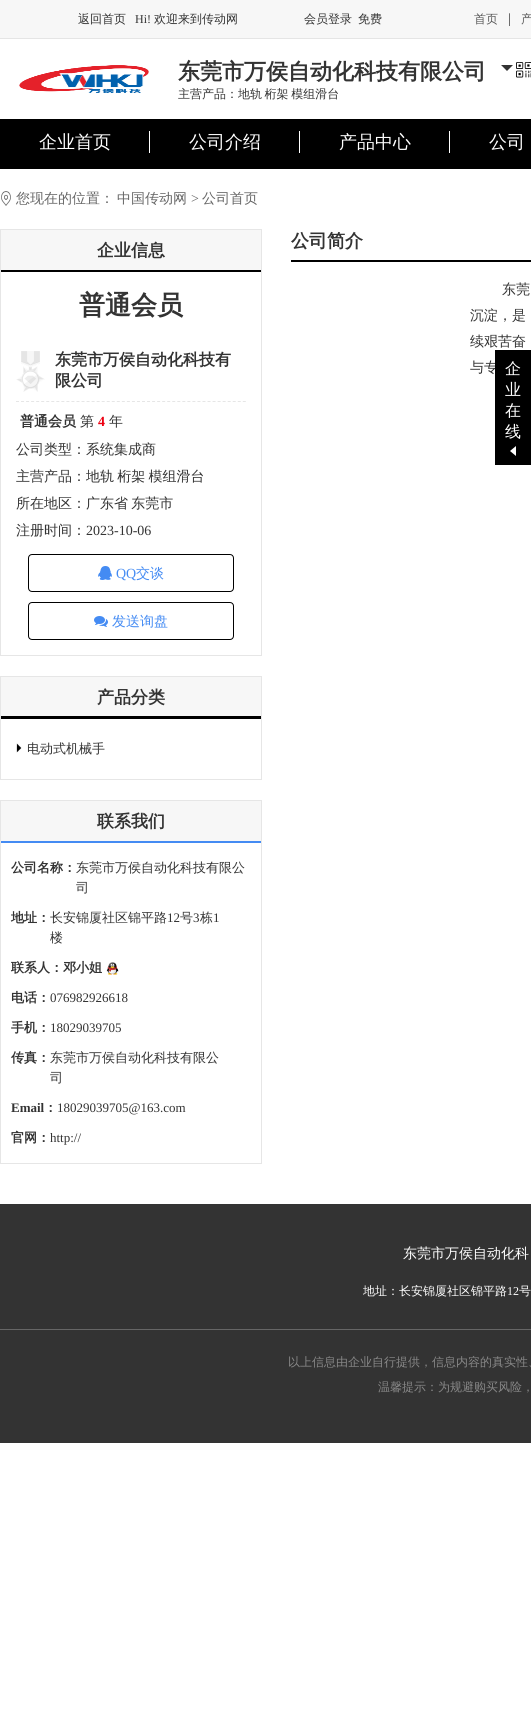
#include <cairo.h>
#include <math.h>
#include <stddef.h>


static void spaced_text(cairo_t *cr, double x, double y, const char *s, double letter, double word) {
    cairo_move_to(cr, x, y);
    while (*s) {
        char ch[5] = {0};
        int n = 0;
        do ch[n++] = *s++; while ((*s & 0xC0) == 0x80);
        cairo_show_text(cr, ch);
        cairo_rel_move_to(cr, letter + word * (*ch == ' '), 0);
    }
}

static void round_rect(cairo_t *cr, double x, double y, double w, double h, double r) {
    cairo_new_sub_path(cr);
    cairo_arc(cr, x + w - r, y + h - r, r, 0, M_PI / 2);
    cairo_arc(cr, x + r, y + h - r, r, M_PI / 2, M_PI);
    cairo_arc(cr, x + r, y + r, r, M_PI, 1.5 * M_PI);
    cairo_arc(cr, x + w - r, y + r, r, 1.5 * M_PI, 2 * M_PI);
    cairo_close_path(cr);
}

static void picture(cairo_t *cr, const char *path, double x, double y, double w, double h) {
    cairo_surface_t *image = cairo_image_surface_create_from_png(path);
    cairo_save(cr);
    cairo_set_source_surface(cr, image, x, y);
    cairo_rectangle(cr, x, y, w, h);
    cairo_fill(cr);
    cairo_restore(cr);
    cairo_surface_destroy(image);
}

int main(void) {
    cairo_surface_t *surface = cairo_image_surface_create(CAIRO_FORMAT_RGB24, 531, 1725);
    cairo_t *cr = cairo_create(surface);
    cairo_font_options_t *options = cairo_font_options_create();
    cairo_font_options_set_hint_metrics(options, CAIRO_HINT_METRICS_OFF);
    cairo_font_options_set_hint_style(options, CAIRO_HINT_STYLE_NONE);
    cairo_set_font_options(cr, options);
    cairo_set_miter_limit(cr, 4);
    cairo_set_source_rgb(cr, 1, 1, 1);
    cairo_paint(cr);
    cairo_set_source_rgb(cr, 0.965, 0.965, 0.965);
    cairo_rectangle(cr, 0, 0, 531, 38);
    cairo_fill(cr);
    cairo_set_source_rgb(cr, 0.898, 0.898, 0.898);
    cairo_rectangle(cr, 0, 38, 531, 1);
    cairo_fill(cr);
    cairo_select_font_face(cr, "WenQuanYi Zen Hei Medium", CAIRO_FONT_SLANT_NORMAL, CAIRO_FONT_WEIGHT_NORMAL);
    cairo_set_font_size(cr, 12);
    cairo_set_source_rgb(cr, 0.2, 0.2, 0.2);
    cairo_move_to(cr, 78, 23);
    cairo_show_text(cr, "返回首页");
    cairo_select_font_face(cr, "Liberation Serif", CAIRO_FONT_SLANT_NORMAL, CAIRO_FONT_WEIGHT_NORMAL);
    cairo_move_to(cr, 135, 23);
    cairo_show_text(cr, "Hi!");
    cairo_select_font_face(cr, "WenQuanYi Zen Hei Medium", CAIRO_FONT_SLANT_NORMAL, CAIRO_FONT_WEIGHT_NORMAL);
    cairo_move_to(cr, 154, 23);
    cairo_show_text(cr, "欢迎来到传动网");
    cairo_move_to(cr, 304, 23);
    cairo_show_text(cr, "会员登录");
    cairo_move_to(cr, 358, 23);
    cairo_show_text(cr, "免费");
    cairo_set_source_rgb(cr, 0.349, 0.349, 0.349);
    cairo_move_to(cr, 474, 23);
    cairo_show_text(cr, "首页");
    cairo_select_font_face(cr, "Liberation Serif", CAIRO_FONT_SLANT_NORMAL, CAIRO_FONT_WEIGHT_NORMAL);
    cairo_set_font_size(cr, 14);
    cairo_set_source_rgb(cr, 0.2, 0.2, 0.2);
    cairo_move_to(cr, 508, 23);
    cairo_show_text(cr, "|");
    cairo_select_font_face(cr, "WenQuanYi Zen Hei Medium", CAIRO_FONT_SLANT_NORMAL, CAIRO_FONT_WEIGHT_NORMAL);
    cairo_set_font_size(cr, 12);
    cairo_set_source_rgb(cr, 0.349, 0.349, 0.349);
    cairo_move_to(cr, 521, 23);
    cairo_show_text(cr, "产");
    picture(cr, "img1.png", 0, 54, 149, 39);
    cairo_select_font_face(cr, "WenQuanYi Zen Hei", CAIRO_FONT_SLANT_NORMAL, CAIRO_FONT_WEIGHT_BOLD);
    cairo_set_font_size(cr, 22);
    cairo_set_source_rgb(cr, 0.2, 0.2, 0.2);
    cairo_move_to(cr, 178, 79);
    cairo_show_text(cr, "东莞市万侯自动化科技有限公司");
    cairo_select_font_face(cr, "WenQuanYi Zen Hei Medium", CAIRO_FONT_SLANT_NORMAL, CAIRO_FONT_WEIGHT_NORMAL);
    cairo_set_font_size(cr, 12);
    spaced_text(cr, 178, 98, "主营产品：地轨 桁架 模组滑台", 0, -1);
    cairo_new_path(cr);
    cairo_move_to(cr, 501, 65);
    cairo_line_to(cr, 513, 65);
    cairo_line_to(cr, 507, 71);
    cairo_close_path(cr);
    cairo_fill(cr);
    picture(cr, "img2.png", 516, 62, 15, 16);
    cairo_set_source_rgb(cr, 0, 0, 0);
    cairo_rectangle(cr, 0, 119, 531, 50);
    cairo_fill(cr);
    cairo_set_source_rgb(cr, 1, 1, 1);
    cairo_rectangle(cr, 149, 131, 1, 22);
    cairo_fill(cr);
    cairo_set_font_size(cr, 18);
    cairo_move_to(cr, 39, 148);
    cairo_show_text(cr, "企业首页");
    cairo_rectangle(cr, 299, 131, 1, 22);
    cairo_fill(cr);
    cairo_move_to(cr, 189, 148);
    cairo_show_text(cr, "公司介绍");
    cairo_rectangle(cr, 449, 131, 1, 22);
    cairo_fill(cr);
    cairo_move_to(cr, 339, 148);
    cairo_show_text(cr, "产品中心");
    cairo_move_to(cr, 489, 148);
    cairo_show_text(cr, "公司");
    picture(cr, "img3.png", 1, 191, 10, 15);
    cairo_set_font_size(cr, 14);
    cairo_set_source_rgb(cr, 0.4, 0.4, 0.4);
    cairo_move_to(cr, 16, 203);
    cairo_show_text(cr, "您现在的位置：");
    cairo_move_to(cr, 117, 203);
    cairo_show_text(cr, "中国传动网");
    cairo_select_font_face(cr, "Liberation Serif", CAIRO_FONT_SLANT_NORMAL, CAIRO_FONT_WEIGHT_NORMAL);
    cairo_move_to(cr, 191, 203);
    cairo_show_text(cr, ">");
    cairo_select_font_face(cr, "WenQuanYi Zen Hei Medium", CAIRO_FONT_SLANT_NORMAL, CAIRO_FONT_WEIGHT_NORMAL);
    cairo_move_to(cr, 202, 203);
    cairo_show_text(cr, "公司首页");
    cairo_rectangle(cr, 0.5, 229.5, 261, 426);
    cairo_set_source_rgb(cr, 0.902, 0.902, 0.902);
    cairo_set_line_width(cr, 1);
    cairo_stroke(cr);
    cairo_set_source_rgb(cr, 0.965, 0.965, 0.965);
    cairo_rectangle(cr, 1, 230, 260, 40);
    cairo_fill(cr);
    cairo_set_source_rgb(cr, 0, 0, 0);
    cairo_rectangle(cr, 1, 270, 260, 2);
    cairo_fill(cr);
    cairo_select_font_face(cr, "WenQuanYi Zen Hei", CAIRO_FONT_SLANT_NORMAL, CAIRO_FONT_WEIGHT_BOLD);
    cairo_set_font_size(cr, 17);
    cairo_set_source_rgb(cr, 0.2, 0.2, 0.2);
    cairo_move_to(cr, 97, 256);
    cairo_show_text(cr, "企业信息");
    cairo_set_font_size(cr, 26);
    cairo_move_to(cr, 79, 314);
    cairo_show_text(cr, "普通会员");
    cairo_new_path(cr);
    cairo_move_to(cr, 16, 401.5);
    cairo_line_to(cr, 246, 401.5);
    cairo_set_source_rgb(cr, 0.902, 0.902, 0.902);
    cairo_set_dash(cr, (double[]){3, 2.04}, 2, 0);
    cairo_stroke(cr);
    picture(cr, "img4.png", 16, 351, 29, 41);
    cairo_set_font_size(cr, 16);
    cairo_set_source_rgb(cr, 0.2, 0.2, 0.2);
    cairo_move_to(cr, 55, 365);
    cairo_show_text(cr, "东莞市万侯自动化科技有");
    cairo_move_to(cr, 55, 386);
    cairo_show_text(cr, "限公司");
    cairo_set_font_size(cr, 14);
    cairo_move_to(cr, 20, 426);
    cairo_show_text(cr, "普通会员");
    cairo_select_font_face(cr, "WenQuanYi Zen Hei Medium", CAIRO_FONT_SLANT_NORMAL, CAIRO_FONT_WEIGHT_NORMAL);
    cairo_move_to(cr, 80, 426);
    cairo_show_text(cr, "第");
    cairo_select_font_face(cr, "Liberation Serif", CAIRO_FONT_SLANT_NORMAL, CAIRO_FONT_WEIGHT_BOLD);
    cairo_set_source_rgb(cr, 0.922, 0, 0.067);
    cairo_move_to(cr, 98, 426);
    cairo_show_text(cr, "4");
    cairo_select_font_face(cr, "WenQuanYi Zen Hei Medium", CAIRO_FONT_SLANT_NORMAL, CAIRO_FONT_WEIGHT_NORMAL);
    cairo_set_source_rgb(cr, 0.2, 0.2, 0.2);
    cairo_move_to(cr, 109, 426);
    cairo_show_text(cr, "年");
    cairo_move_to(cr, 16, 454);
    cairo_show_text(cr, "公司类型：系统集成商");
    spaced_text(cr, 16, 481, "主营产品：地轨 桁架 模组滑台", 0, -1);
    spaced_text(cr, 16, 508, "所在地区：广东省 东莞市", 0, -1);
    cairo_move_to(cr, 16, 535);
    cairo_show_text(cr, "注册时间：");
    cairo_select_font_face(cr, "Liberation Serif", CAIRO_FONT_SLANT_NORMAL, CAIRO_FONT_WEIGHT_NORMAL);
    cairo_move_to(cr, 86, 535);
    cairo_show_text(cr, "2023-10-06");
    round_rect(cr, 28.5, 554.5, 205, 37, 3.5);
    cairo_set_source_rgb(cr, 0, 0, 0);
    cairo_set_dash(cr, NULL, 0, 0);
    cairo_stroke(cr);
    picture(cr, "img5.png", 98, 566, 14, 14);
    cairo_set_source_rgb(cr, 0.267, 0.545, 0.953);
    cairo_move_to(cr, 116, 578);
    cairo_show_text(cr, "QQ");
    cairo_select_font_face(cr, "WenQuanYi Zen Hei Medium", CAIRO_FONT_SLANT_NORMAL, CAIRO_FONT_WEIGHT_NORMAL);
    cairo_move_to(cr, 136, 578);
    cairo_show_text(cr, "交谈");
    round_rect(cr, 28.5, 602.5, 205, 37, 3.5);
    cairo_set_source_rgb(cr, 0, 0, 0);
    cairo_stroke(cr);
    picture(cr, "img6.png", 94, 616, 14, 11);
    cairo_set_source_rgb(cr, 0.267, 0.545, 0.953);
    cairo_move_to(cr, 112, 626);
    cairo_show_text(cr, "发送询盘");
    cairo_rectangle(cr, 0.5, 676.5, 261, 103);
    cairo_set_source_rgb(cr, 0.902, 0.902, 0.902);
    cairo_stroke(cr);
    cairo_set_source_rgb(cr, 0.965, 0.965, 0.965);
    cairo_rectangle(cr, 1, 677, 260, 39);
    cairo_fill(cr);
    cairo_set_source_rgb(cr, 0, 0, 0);
    cairo_rectangle(cr, 1, 716, 260, 3);
    cairo_fill(cr);
    cairo_select_font_face(cr, "WenQuanYi Zen Hei", CAIRO_FONT_SLANT_NORMAL, CAIRO_FONT_WEIGHT_BOLD);
    cairo_set_font_size(cr, 17);
    cairo_set_source_rgb(cr, 0.2, 0.2, 0.2);
    cairo_move_to(cr, 97, 703);
    cairo_show_text(cr, "产品分类");
    picture(cr, "img7.png", 16, 743, 6, 10);
    cairo_select_font_face(cr, "WenQuanYi Zen Hei Medium", CAIRO_FONT_SLANT_NORMAL, CAIRO_FONT_WEIGHT_NORMAL);
    cairo_set_font_size(cr, 13);
    cairo_move_to(cr, 27, 753);
    cairo_show_text(cr, "电动式机械手");
    cairo_rectangle(cr, 0.5, 800.5, 261, 363);
    cairo_set_source_rgb(cr, 0.902, 0.902, 0.902);
    cairo_stroke(cr);
    cairo_set_source_rgb(cr, 0.965, 0.965, 0.965);
    cairo_rectangle(cr, 1, 801, 260, 40);
    cairo_fill(cr);
    cairo_set_source_rgb(cr, 0.267, 0.545, 0.953);
    cairo_rectangle(cr, 1, 841, 260, 2);
    cairo_fill(cr);
    cairo_select_font_face(cr, "WenQuanYi Zen Hei", CAIRO_FONT_SLANT_NORMAL, CAIRO_FONT_WEIGHT_BOLD);
    cairo_set_font_size(cr, 17);
    cairo_set_source_rgb(cr, 0.2, 0.2, 0.2);
    cairo_move_to(cr, 97, 827);
    cairo_show_text(cr, "联系我们");
    cairo_set_font_size(cr, 13);
    cairo_move_to(cr, 11, 872);
    cairo_show_text(cr, "公司名称：");
    cairo_select_font_face(cr, "WenQuanYi Zen Hei Medium", CAIRO_FONT_SLANT_NORMAL, CAIRO_FONT_WEIGHT_NORMAL);
    cairo_move_to(cr, 76, 872);
    cairo_show_text(cr, "东莞市万侯自动化科技有限公");
    cairo_move_to(cr, 76, 892);
    cairo_show_text(cr, "司");
    cairo_select_font_face(cr, "WenQuanYi Zen Hei", CAIRO_FONT_SLANT_NORMAL, CAIRO_FONT_WEIGHT_BOLD);
    cairo_move_to(cr, 11, 922);
    cairo_show_text(cr, "地址：");
    cairo_select_font_face(cr, "WenQuanYi Zen Hei Medium", CAIRO_FONT_SLANT_NORMAL, CAIRO_FONT_WEIGHT_NORMAL);
    cairo_move_to(cr, 50, 922);
    cairo_show_text(cr, "长安锦厦社区锦平路");
    cairo_select_font_face(cr, "Liberation Serif", CAIRO_FONT_SLANT_NORMAL, CAIRO_FONT_WEIGHT_NORMAL);
    cairo_move_to(cr, 167, 922);
    cairo_show_text(cr, "12");
    cairo_select_font_face(cr, "WenQuanYi Zen Hei Medium", CAIRO_FONT_SLANT_NORMAL, CAIRO_FONT_WEIGHT_NORMAL);
    cairo_move_to(cr, 180, 922);
    cairo_show_text(cr, "号");
    cairo_select_font_face(cr, "Liberation Serif", CAIRO_FONT_SLANT_NORMAL, CAIRO_FONT_WEIGHT_NORMAL);
    cairo_move_to(cr, 193, 922);
    cairo_show_text(cr, "3");
    cairo_select_font_face(cr, "WenQuanYi Zen Hei Medium", CAIRO_FONT_SLANT_NORMAL, CAIRO_FONT_WEIGHT_NORMAL);
    cairo_move_to(cr, 200, 922);
    cairo_show_text(cr, "栋");
    cairo_select_font_face(cr, "Liberation Serif", CAIRO_FONT_SLANT_NORMAL, CAIRO_FONT_WEIGHT_NORMAL);
    cairo_move_to(cr, 213, 922);
    cairo_show_text(cr, "1");
    cairo_select_font_face(cr, "WenQuanYi Zen Hei Medium", CAIRO_FONT_SLANT_NORMAL, CAIRO_FONT_WEIGHT_NORMAL);
    cairo_move_to(cr, 50, 942);
    cairo_show_text(cr, "楼");
    cairo_select_font_face(cr, "WenQuanYi Zen Hei", CAIRO_FONT_SLANT_NORMAL, CAIRO_FONT_WEIGHT_BOLD);
    cairo_move_to(cr, 11, 972);
    cairo_show_text(cr, "联系人：邓小姐");
    picture(cr, "img8.png", 106, 962, 13, 13);
    cairo_move_to(cr, 11, 1002);
    cairo_show_text(cr, "电话：");
    cairo_select_font_face(cr, "Liberation Serif", CAIRO_FONT_SLANT_NORMAL, CAIRO_FONT_WEIGHT_NORMAL);
    cairo_move_to(cr, 50, 1002);
    cairo_show_text(cr, "076982926618");
    cairo_select_font_face(cr, "WenQuanYi Zen Hei", CAIRO_FONT_SLANT_NORMAL, CAIRO_FONT_WEIGHT_BOLD);
    cairo_move_to(cr, 11, 1032);
    cairo_show_text(cr, "手机：");
    cairo_select_font_face(cr, "Liberation Serif", CAIRO_FONT_SLANT_NORMAL, CAIRO_FONT_WEIGHT_NORMAL);
    cairo_move_to(cr, 50, 1032);
    cairo_show_text(cr, "18029039705");
    cairo_select_font_face(cr, "WenQuanYi Zen Hei", CAIRO_FONT_SLANT_NORMAL, CAIRO_FONT_WEIGHT_BOLD);
    cairo_move_to(cr, 11, 1062);
    cairo_show_text(cr, "传真：");
    cairo_select_font_face(cr, "WenQuanYi Zen Hei Medium", CAIRO_FONT_SLANT_NORMAL, CAIRO_FONT_WEIGHT_NORMAL);
    cairo_move_to(cr, 50, 1062);
    cairo_show_text(cr, "东莞市万侯自动化科技有限公");
    cairo_move_to(cr, 50, 1082);
    cairo_show_text(cr, "司");
    cairo_select_font_face(cr, "Liberation Serif", CAIRO_FONT_SLANT_NORMAL, CAIRO_FONT_WEIGHT_BOLD);
    cairo_move_to(cr, 11, 1112);
    cairo_show_text(cr, "Email");
    cairo_select_font_face(cr, "WenQuanYi Zen Hei", CAIRO_FONT_SLANT_NORMAL, CAIRO_FONT_WEIGHT_BOLD);
    cairo_move_to(cr, 44, 1112);
    cairo_show_text(cr, "：");
    cairo_select_font_face(cr, "Liberation Serif", CAIRO_FONT_SLANT_NORMAL, CAIRO_FONT_WEIGHT_NORMAL);
    cairo_move_to(cr, 57, 1112);
    cairo_show_text(cr, "18029039705@163.com");
    cairo_select_font_face(cr, "WenQuanYi Zen Hei", CAIRO_FONT_SLANT_NORMAL, CAIRO_FONT_WEIGHT_BOLD);
    cairo_move_to(cr, 11, 1142);
    cairo_show_text(cr, "官网：");
    cairo_select_font_face(cr, "Liberation Serif", CAIRO_FONT_SLANT_NORMAL, CAIRO_FONT_WEIGHT_NORMAL);
    cairo_move_to(cr, 50, 1142);
    cairo_show_text(cr, "http://");
    cairo_set_source_rgb(cr, 0, 0, 0);
    cairo_rectangle(cr, 291, 260, 240, 2);
    cairo_fill(cr);
    cairo_select_font_face(cr, "WenQuanYi Zen Hei", CAIRO_FONT_SLANT_NORMAL, CAIRO_FONT_WEIGHT_BOLD);
    cairo_set_font_size(cr, 18);
    cairo_set_source_rgb(cr, 0.2, 0.2, 0.2);
    cairo_move_to(cr, 291, 247);
    cairo_show_text(cr, "公司简介");
    cairo_select_font_face(cr, "WenQuanYi Zen Hei Medium", CAIRO_FONT_SLANT_NORMAL, CAIRO_FONT_WEIGHT_NORMAL);
    cairo_set_font_size(cr, 14);
    cairo_move_to(cr, 502, 294);
    cairo_show_text(cr, "东莞");
    cairo_move_to(cr, 470, 320);
    cairo_show_text(cr, "沉淀，是");
    cairo_move_to(cr, 470, 346);
    cairo_show_text(cr, "续艰苦奋");
    cairo_move_to(cr, 470, 372);
    cairo_show_text(cr, "与专");
    cairo_set_source_rgb(cr, 0, 0, 0);
    cairo_rectangle(cr, 495, 350, 36, 115);
    cairo_fill(cr);
    cairo_set_font_size(cr, 16);
    cairo_set_source_rgb(cr, 1, 1, 1);
    cairo_move_to(cr, 505, 374);
    cairo_show_text(cr, "企");
    cairo_move_to(cr, 505, 395);
    cairo_show_text(cr, "业");
    cairo_move_to(cr, 505, 416);
    cairo_show_text(cr, "在");
    cairo_move_to(cr, 505, 437);
    cairo_show_text(cr, "线");
    picture(cr, "img9.png", 510, 446, 6, 10);
    cairo_set_source_rgb(cr, 0.2, 0.2, 0.2);
    cairo_rectangle(cr, 0, 1204, 531, 239);
    cairo_fill(cr);
    cairo_set_source_rgb(cr, 0.4, 0.4, 0.4);
    cairo_rectangle(cr, 0, 1329, 531, 1);
    cairo_fill(cr);
    cairo_set_font_size(cr, 14);
    cairo_set_source_rgb(cr, 1, 1, 1);
    cairo_move_to(cr, 403, 1258);
    cairo_show_text(cr, "东莞市万侯自动化科");
    cairo_set_font_size(cr, 12);
    cairo_move_to(cr, 363, 1295);
    cairo_show_text(cr, "地址：长安锦厦社区锦平路");
    cairo_select_font_face(cr, "Liberation Serif", CAIRO_FONT_SLANT_NORMAL, CAIRO_FONT_WEIGHT_NORMAL);
    cairo_move_to(cr, 507, 1295);
    cairo_show_text(cr, "12");
    cairo_select_font_face(cr, "WenQuanYi Zen Hei Medium", CAIRO_FONT_SLANT_NORMAL, CAIRO_FONT_WEIGHT_NORMAL);
    cairo_move_to(cr, 519, 1295);
    cairo_show_text(cr, "号");
    cairo_set_source_rgb(cr, 0.533, 0.533, 0.533);
    cairo_move_to(cr, 288, 1366);
    cairo_show_text(cr, "以上信息由企业自行提供，信息内容的真实性、");
    cairo_move_to(cr, 378, 1391);
    cairo_show_text(cr, "温馨提示：为规避购买风险，");
    cairo_surface_write_to_png(surface, "page.png");
    cairo_font_options_destroy(options);
    cairo_destroy(cr);
    cairo_surface_destroy(surface);
    return 0;
}
